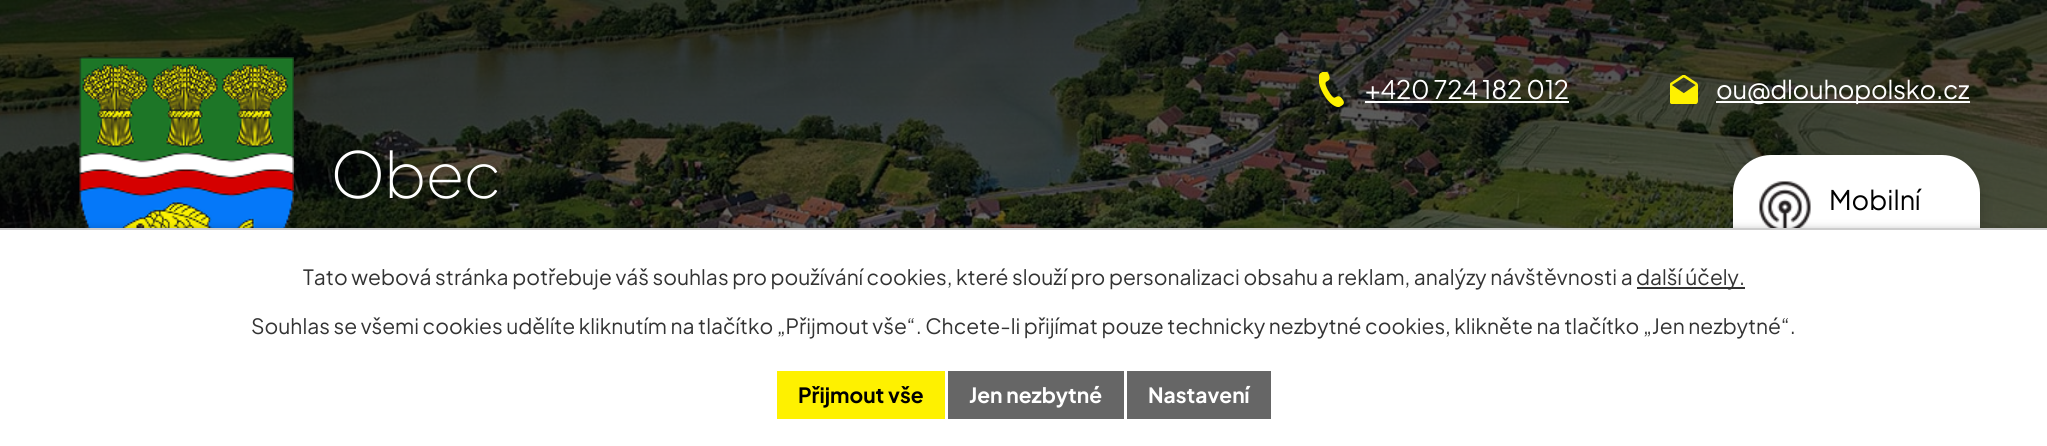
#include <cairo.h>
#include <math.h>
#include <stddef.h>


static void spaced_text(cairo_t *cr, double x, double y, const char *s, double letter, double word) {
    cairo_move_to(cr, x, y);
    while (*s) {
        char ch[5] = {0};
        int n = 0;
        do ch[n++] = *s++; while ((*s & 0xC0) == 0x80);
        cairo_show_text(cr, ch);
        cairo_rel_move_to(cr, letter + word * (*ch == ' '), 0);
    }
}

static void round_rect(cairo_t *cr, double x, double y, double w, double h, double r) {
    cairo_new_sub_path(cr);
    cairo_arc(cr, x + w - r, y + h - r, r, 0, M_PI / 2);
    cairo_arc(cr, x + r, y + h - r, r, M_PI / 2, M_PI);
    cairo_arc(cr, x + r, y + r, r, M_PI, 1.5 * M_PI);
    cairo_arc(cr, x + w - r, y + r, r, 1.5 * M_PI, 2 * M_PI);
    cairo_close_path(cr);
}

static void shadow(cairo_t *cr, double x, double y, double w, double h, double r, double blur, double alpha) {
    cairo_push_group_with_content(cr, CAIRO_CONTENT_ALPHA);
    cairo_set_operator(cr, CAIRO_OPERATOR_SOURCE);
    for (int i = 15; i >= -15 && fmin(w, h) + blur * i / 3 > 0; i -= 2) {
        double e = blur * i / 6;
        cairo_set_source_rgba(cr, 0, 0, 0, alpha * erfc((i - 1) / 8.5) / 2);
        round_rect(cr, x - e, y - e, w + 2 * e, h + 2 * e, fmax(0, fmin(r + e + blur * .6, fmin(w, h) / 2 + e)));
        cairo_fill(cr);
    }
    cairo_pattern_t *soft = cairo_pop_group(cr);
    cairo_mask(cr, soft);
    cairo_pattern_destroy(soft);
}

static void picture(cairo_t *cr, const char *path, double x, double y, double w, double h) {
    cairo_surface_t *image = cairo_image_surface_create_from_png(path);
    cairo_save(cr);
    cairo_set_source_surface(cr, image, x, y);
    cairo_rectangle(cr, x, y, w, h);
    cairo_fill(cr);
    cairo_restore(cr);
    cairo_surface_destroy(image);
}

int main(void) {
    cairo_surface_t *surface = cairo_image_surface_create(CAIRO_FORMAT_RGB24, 2047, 446);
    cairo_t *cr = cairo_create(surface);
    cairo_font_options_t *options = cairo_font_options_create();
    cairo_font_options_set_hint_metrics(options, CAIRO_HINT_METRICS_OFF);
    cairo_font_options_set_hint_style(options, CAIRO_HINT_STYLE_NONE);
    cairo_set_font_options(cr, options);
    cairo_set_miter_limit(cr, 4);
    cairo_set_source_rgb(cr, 1, 1, 1);
    cairo_paint(cr);
    picture(cr, "img4.png", 0, 0, 2047, 228);
    picture(cr, "img1.png", 1319, 72, 25, 35);
    cairo_select_font_face(cr, "Plus Jakarta Sans", CAIRO_FONT_SLANT_NORMAL, CAIRO_FONT_WEIGHT_NORMAL);
    cairo_set_font_size(cr, 25.5);
    cairo_set_source_rgb(cr, 1, 1, 1);
    spaced_text(cr, 1365, 99, "+420 724 182 012", -0.25, 0);
    cairo_rectangle(cr, 1365, 101, 204, 2);
    cairo_fill(cr);
    picture(cr, "img2.png", 1670, 75, 28, 29);
    cairo_rectangle(cr, 1716, 101, 254, 2);
    cairo_fill(cr);
    spaced_text(cr, 1716, 99, "ou@dlouhopolsko.cz", -0.25, 0);
    picture(cr, "img3.png", 79, 57, 215, 171);
    cairo_select_font_face(cr, "Plus Jakarta Sans ExtraLight", CAIRO_FONT_SLANT_NORMAL, CAIRO_FONT_WEIGHT_NORMAL);
    cairo_set_font_size(cr, 63);
    spaced_text(cr, 330, 198, "Obec", -1.5, 0);
    cairo_set_source_rgb(cr, 0, 0, 0);
    shadow(cr, 1733, 159, 247, 225, 38, 7.5, 0.2);
    cairo_set_source_rgb(cr, 1, 1, 1);
    round_rect(cr, 1733, 155, 247, 225, 38);
    cairo_fill(cr);
    picture(cr, "img5.png", 1759, 181, 52, 47);
    cairo_select_font_face(cr, "Plus Jakarta Sans", CAIRO_FONT_SLANT_NORMAL, CAIRO_FONT_WEIGHT_NORMAL);
    cairo_set_font_size(cr, 27);
    cairo_set_source_rgb(cr, 0, 0, 0);
    cairo_move_to(cr, 1829, 210);
    cairo_show_text(cr, "Mobilní");
    cairo_set_source_rgb(cr, 0, 0, 0);
    shadow(cr, 0, 228, 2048, 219, 0, 4, 0.2);
    cairo_set_source_rgb(cr, 1, 1, 1);
    cairo_rectangle(cr, 0, 230, 2047, 216);
    cairo_fill(cr);
    cairo_set_source_rgb(cr, 0.8, 0.8, 0.8);
    cairo_rectangle(cr, 0, 228, 2047, 2);
    cairo_fill(cr);
    cairo_set_font_size(cr, 21);
    cairo_set_source_rgb(cr, 0.2, 0.2, 0.2);
    cairo_move_to(cr, 303, 285);
    cairo_show_text(cr, "Tato webová stránka potřebuje váš souhlas pro používání cookies, které slouží pro personalizaci obsahu a reklam, analýzy návštěvnosti a");
    cairo_rectangle(cr, 1637, 287, 108, 2);
    cairo_fill(cr);
    cairo_move_to(cr, 1636, 285);
    cairo_show_text(cr, "další účely.");
    cairo_move_to(cr, 251, 334);
    cairo_show_text(cr, "Souhlas se všemi cookies udělíte kliknutím na tlačítko „Přijmout vše“. Chcete-li přijímat pouze technicky nezbytné cookies, klikněte na tlačítko „Jen nezbytné“.");
    cairo_set_source_rgb(cr, 0.996, 0.945, 0);
    cairo_rectangle(cr, 777, 371, 168, 48);
    cairo_fill(cr);
    cairo_select_font_face(cr, "Plus Jakarta Sans", CAIRO_FONT_SLANT_NORMAL, CAIRO_FONT_WEIGHT_BOLD);
    cairo_set_source_rgb(cr, 0, 0, 0);
    cairo_move_to(cr, 798, 403);
    cairo_show_text(cr, "Přijmout vše");
    cairo_set_source_rgb(cr, 0.4, 0.4, 0.4);
    cairo_rectangle(cr, 948, 371, 176, 48);
    cairo_fill(cr);
    cairo_set_source_rgb(cr, 1, 1, 1);
    cairo_move_to(cr, 969, 403);
    cairo_show_text(cr, "Jen nezbytné");
    cairo_set_source_rgb(cr, 0.4, 0.4, 0.4);
    cairo_rectangle(cr, 1127, 371, 144, 48);
    cairo_fill(cr);
    cairo_set_source_rgb(cr, 1, 1, 1);
    cairo_move_to(cr, 1148, 403);
    cairo_show_text(cr, "Nastavení");
    cairo_surface_write_to_png(surface, "page.png");
    cairo_font_options_destroy(options);
    cairo_destroy(cr);
    cairo_surface_destroy(surface);
    return 0;
}
